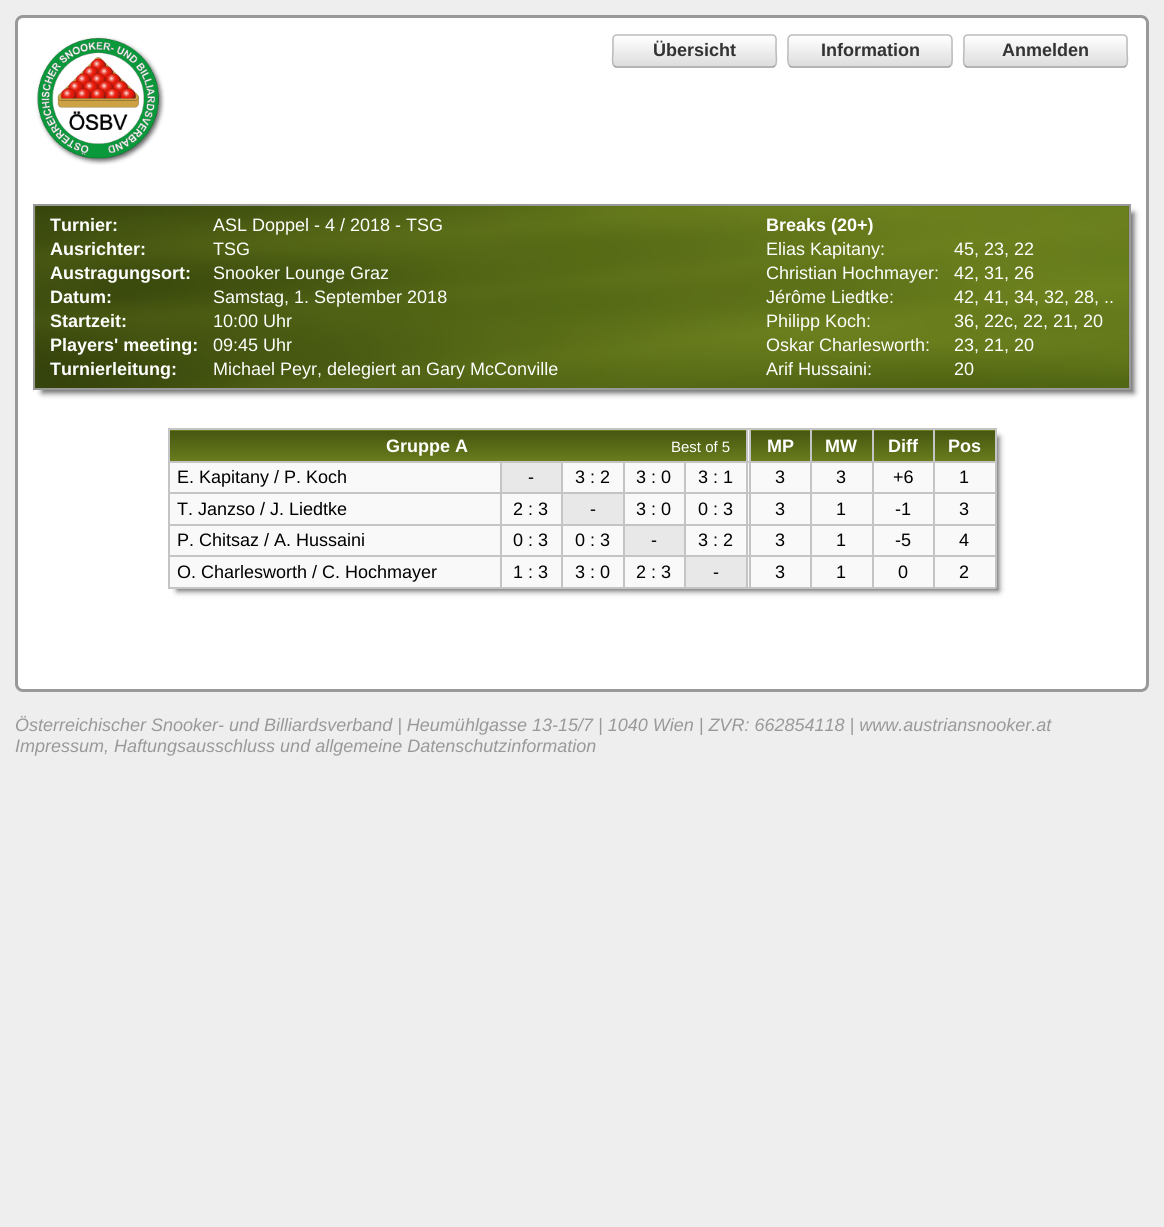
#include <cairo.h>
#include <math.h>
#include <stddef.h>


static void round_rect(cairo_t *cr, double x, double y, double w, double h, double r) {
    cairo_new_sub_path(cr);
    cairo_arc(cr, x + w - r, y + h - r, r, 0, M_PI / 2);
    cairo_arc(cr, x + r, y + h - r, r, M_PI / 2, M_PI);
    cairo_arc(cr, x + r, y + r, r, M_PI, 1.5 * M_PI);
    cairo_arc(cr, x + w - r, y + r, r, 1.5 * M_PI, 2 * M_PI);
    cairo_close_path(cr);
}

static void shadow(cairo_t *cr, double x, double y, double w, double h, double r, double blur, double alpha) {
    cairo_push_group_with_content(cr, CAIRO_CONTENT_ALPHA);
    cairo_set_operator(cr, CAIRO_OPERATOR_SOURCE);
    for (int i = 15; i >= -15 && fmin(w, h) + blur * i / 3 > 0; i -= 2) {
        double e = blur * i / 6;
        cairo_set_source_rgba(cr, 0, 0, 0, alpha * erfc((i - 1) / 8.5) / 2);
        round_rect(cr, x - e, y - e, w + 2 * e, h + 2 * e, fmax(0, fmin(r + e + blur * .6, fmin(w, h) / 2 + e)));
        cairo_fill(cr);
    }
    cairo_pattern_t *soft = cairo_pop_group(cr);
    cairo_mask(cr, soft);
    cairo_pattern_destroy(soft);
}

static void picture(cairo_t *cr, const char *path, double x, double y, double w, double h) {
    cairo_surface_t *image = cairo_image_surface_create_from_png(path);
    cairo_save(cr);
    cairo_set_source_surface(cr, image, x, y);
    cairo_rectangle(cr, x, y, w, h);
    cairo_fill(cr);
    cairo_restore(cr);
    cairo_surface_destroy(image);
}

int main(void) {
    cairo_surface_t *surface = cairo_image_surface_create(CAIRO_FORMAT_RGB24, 1164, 1227);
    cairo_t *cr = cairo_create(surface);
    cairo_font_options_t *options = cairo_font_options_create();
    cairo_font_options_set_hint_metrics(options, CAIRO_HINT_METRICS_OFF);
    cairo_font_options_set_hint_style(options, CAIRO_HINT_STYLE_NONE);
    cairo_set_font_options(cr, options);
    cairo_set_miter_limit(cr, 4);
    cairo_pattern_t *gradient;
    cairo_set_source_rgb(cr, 0.933, 0.933, 0.933);
    cairo_paint(cr);
    cairo_set_source_rgb(cr, 1, 1, 1);
    round_rect(cr, 16.5, 16.5, 1131, 674, 6.5);
    cairo_fill_preserve(cr);
    cairo_set_source_rgb(cr, 0.6, 0.6, 0.6);
    cairo_set_line_width(cr, 3);
    cairo_stroke(cr);
    picture(cr, "img1.png", 36, 36, 129, 129);
    cairo_save(cr);
    round_rect(cr, 612, 35, 165, 33, 5);
    cairo_clip(cr);
    gradient = cairo_pattern_create_linear(695, 36, 695, 66);
    cairo_pattern_add_color_stop_rgba(gradient, 0, 1, 1, 1, 1);
    cairo_pattern_add_color_stop_rgba(gradient, 1, 0.867, 0.867, 0.867, 1);
    cairo_set_source(cr, gradient);
    cairo_pattern_destroy(gradient);
    cairo_rectangle(cr, 612, 36, 165, 30);
    cairo_fill(cr);
    cairo_restore(cr);
    cairo_new_path(cr);
    cairo_move_to(cr, 775, 65.5);
    cairo_curve_to(cr, 774.5, 66.5, 773.5, 67, 772.5, 67);
    cairo_line_to(cr, 616.5, 67);
    cairo_curve_to(cr, 615.5, 67, 614.5, 66.5, 614, 65.5);
    cairo_set_line_width(cr, 1.5);
    cairo_stroke(cr);
    cairo_new_path(cr);
    cairo_move_to(cr, 614, 65.5);
    cairo_curve_to(cr, 611.5, 63.5, 613, 54, 613, 51);
    cairo_line_to(cr, 613, 43);
    cairo_curve_to(cr, 613, 40, 612, 35.5, 616.5, 35);
    cairo_line_to(cr, 772.5, 35);
    cairo_curve_to(cr, 777, 35.5, 776, 40, 776, 43);
    cairo_line_to(cr, 776, 51);
    cairo_curve_to(cr, 776, 54, 777.5, 63.5, 775, 65.5);
    cairo_set_source_rgb(cr, 0.733, 0.733, 0.733);
    cairo_stroke(cr);
    cairo_select_font_face(cr, "Liberation Sans", CAIRO_FONT_SLANT_NORMAL, CAIRO_FONT_WEIGHT_BOLD);
    cairo_set_font_size(cr, 18);
    cairo_set_source_rgb(cr, 0.2, 0.2, 0.2);
    cairo_move_to(cr, 653, 56);
    cairo_show_text(cr, "Übersicht");
    cairo_save(cr);
    round_rect(cr, 788, 35, 165, 33, 5);
    cairo_clip(cr);
    gradient = cairo_pattern_create_linear(870, 36, 870, 66);
    cairo_pattern_add_color_stop_rgba(gradient, 0, 1, 1, 1, 1);
    cairo_pattern_add_color_stop_rgba(gradient, 1, 0.867, 0.867, 0.867, 1);
    cairo_set_source(cr, gradient);
    cairo_pattern_destroy(gradient);
    cairo_rectangle(cr, 788, 36, 165, 30);
    cairo_fill(cr);
    cairo_restore(cr);
    cairo_new_path(cr);
    cairo_move_to(cr, 950.5, 65.5);
    cairo_curve_to(cr, 950, 66.5, 949, 67, 948, 67);
    cairo_line_to(cr, 792, 67);
    cairo_curve_to(cr, 791, 67, 790, 66.5, 789.5, 65.5);
    cairo_set_source_rgb(cr, 0.6, 0.6, 0.6);
    cairo_stroke(cr);
    cairo_new_path(cr);
    cairo_move_to(cr, 789.5, 65.5);
    cairo_curve_to(cr, 787, 63.5, 788, 54, 788, 51);
    cairo_line_to(cr, 788, 43);
    cairo_curve_to(cr, 788, 40, 787.5, 35.5, 792, 35);
    cairo_line_to(cr, 948, 35);
    cairo_curve_to(cr, 952.5, 35.5, 952, 40, 952, 43);
    cairo_line_to(cr, 952, 51);
    cairo_curve_to(cr, 952, 54, 953, 63.5, 950.5, 65.5);
    cairo_set_source_rgb(cr, 0.733, 0.733, 0.733);
    cairo_stroke(cr);
    cairo_set_source_rgb(cr, 0.2, 0.2, 0.2);
    cairo_move_to(cr, 821, 56);
    cairo_show_text(cr, "Information");
    cairo_save(cr);
    round_rect(cr, 963, 35, 165, 33, 5);
    cairo_clip(cr);
    gradient = cairo_pattern_create_linear(1046, 36, 1046, 66);
    cairo_pattern_add_color_stop_rgba(gradient, 0, 1, 1, 1, 1);
    cairo_pattern_add_color_stop_rgba(gradient, 1, 0.867, 0.867, 0.867, 1);
    cairo_set_source(cr, gradient);
    cairo_pattern_destroy(gradient);
    cairo_rectangle(cr, 963, 36, 165, 30);
    cairo_fill(cr);
    cairo_restore(cr);
    cairo_new_path(cr);
    cairo_move_to(cr, 1126, 65.5);
    cairo_curve_to(cr, 1125.5, 66.5, 1124.5, 67, 1123.5, 67);
    cairo_line_to(cr, 967.5, 67);
    cairo_curve_to(cr, 966.5, 67, 965.5, 66.5, 965, 65.5);
    cairo_set_source_rgb(cr, 0.6, 0.6, 0.6);
    cairo_stroke(cr);
    cairo_new_path(cr);
    cairo_move_to(cr, 965, 65.5);
    cairo_curve_to(cr, 962.5, 63.5, 964, 54, 964, 51);
    cairo_line_to(cr, 964, 43);
    cairo_curve_to(cr, 964, 40, 963, 35.5, 967.5, 35);
    cairo_line_to(cr, 1123.5, 35);
    cairo_curve_to(cr, 1128, 35.5, 1127, 40, 1127, 43);
    cairo_line_to(cr, 1127, 51);
    cairo_curve_to(cr, 1127, 54, 1128.5, 63.5, 1126, 65.5);
    cairo_set_source_rgb(cr, 0.733, 0.733, 0.733);
    cairo_stroke(cr);
    cairo_set_source_rgb(cr, 0.2, 0.2, 0.2);
    cairo_move_to(cr, 1002, 56);
    cairo_show_text(cr, "Anmelden");
    cairo_set_source_rgb(cr, 0.4, 0.4, 0.4);
    shadow(cr, 42, 213, 1092, 180, 0, 3, 1);
    picture(cr, "img2.png", 35, 206, 1094, 182);
    cairo_rectangle(cr, 34, 205, 1096, 184);
    cairo_set_source_rgb(cr, 0.6, 0.6, 0.6);
    cairo_set_line_width(cr, 2);
    cairo_stroke(cr);
    cairo_set_source_rgb(cr, 1, 1, 1);
    cairo_move_to(cr, 50, 231);
    cairo_show_text(cr, "Turnier:");
    cairo_select_font_face(cr, "Liberation Sans", CAIRO_FONT_SLANT_NORMAL, CAIRO_FONT_WEIGHT_NORMAL);
    cairo_move_to(cr, 213, 231);
    cairo_show_text(cr, "ASL Doppel - 4 / 2018 - TSG");
    cairo_select_font_face(cr, "Liberation Sans", CAIRO_FONT_SLANT_NORMAL, CAIRO_FONT_WEIGHT_BOLD);
    cairo_move_to(cr, 50, 255);
    cairo_show_text(cr, "Ausrichter:");
    cairo_select_font_face(cr, "Liberation Sans", CAIRO_FONT_SLANT_NORMAL, CAIRO_FONT_WEIGHT_NORMAL);
    cairo_move_to(cr, 213, 255);
    cairo_show_text(cr, "TSG");
    cairo_select_font_face(cr, "Liberation Sans", CAIRO_FONT_SLANT_NORMAL, CAIRO_FONT_WEIGHT_BOLD);
    cairo_move_to(cr, 50, 279);
    cairo_show_text(cr, "Austragungsort:");
    cairo_select_font_face(cr, "Liberation Sans", CAIRO_FONT_SLANT_NORMAL, CAIRO_FONT_WEIGHT_NORMAL);
    cairo_move_to(cr, 213, 279);
    cairo_show_text(cr, "Snooker Lounge Graz");
    cairo_select_font_face(cr, "Liberation Sans", CAIRO_FONT_SLANT_NORMAL, CAIRO_FONT_WEIGHT_BOLD);
    cairo_move_to(cr, 50, 303);
    cairo_show_text(cr, "Datum:");
    cairo_select_font_face(cr, "Liberation Sans", CAIRO_FONT_SLANT_NORMAL, CAIRO_FONT_WEIGHT_NORMAL);
    cairo_move_to(cr, 213, 303);
    cairo_show_text(cr, "Samstag, 1. September 2018");
    cairo_select_font_face(cr, "Liberation Sans", CAIRO_FONT_SLANT_NORMAL, CAIRO_FONT_WEIGHT_BOLD);
    cairo_move_to(cr, 50, 327);
    cairo_show_text(cr, "Startzeit:");
    cairo_select_font_face(cr, "Liberation Sans", CAIRO_FONT_SLANT_NORMAL, CAIRO_FONT_WEIGHT_NORMAL);
    cairo_move_to(cr, 213, 327);
    cairo_show_text(cr, "10:00 Uhr");
    cairo_select_font_face(cr, "Liberation Sans", CAIRO_FONT_SLANT_NORMAL, CAIRO_FONT_WEIGHT_BOLD);
    cairo_move_to(cr, 50, 351);
    cairo_show_text(cr, "Players' meeting:");
    cairo_select_font_face(cr, "Liberation Sans", CAIRO_FONT_SLANT_NORMAL, CAIRO_FONT_WEIGHT_NORMAL);
    cairo_move_to(cr, 213, 351);
    cairo_show_text(cr, "09:45 Uhr");
    cairo_select_font_face(cr, "Liberation Sans", CAIRO_FONT_SLANT_NORMAL, CAIRO_FONT_WEIGHT_BOLD);
    cairo_move_to(cr, 50, 375);
    cairo_show_text(cr, "Turnierleitung:");
    cairo_select_font_face(cr, "Liberation Sans", CAIRO_FONT_SLANT_NORMAL, CAIRO_FONT_WEIGHT_NORMAL);
    cairo_move_to(cr, 213, 375);
    cairo_show_text(cr, "Michael Peyr, delegiert an Gary McConville");
    cairo_select_font_face(cr, "Liberation Sans", CAIRO_FONT_SLANT_NORMAL, CAIRO_FONT_WEIGHT_BOLD);
    cairo_move_to(cr, 766, 231);
    cairo_show_text(cr, "Breaks (20+)");
    cairo_select_font_face(cr, "Liberation Sans", CAIRO_FONT_SLANT_NORMAL, CAIRO_FONT_WEIGHT_NORMAL);
    cairo_move_to(cr, 766, 255);
    cairo_show_text(cr, "Elias Kapitany:");
    cairo_move_to(cr, 954, 255);
    cairo_show_text(cr, "45, 23, 22");
    cairo_move_to(cr, 766, 279);
    cairo_show_text(cr, "Christian Hochmayer:");
    cairo_move_to(cr, 954, 279);
    cairo_show_text(cr, "42, 31, 26");
    cairo_move_to(cr, 766, 303);
    cairo_show_text(cr, "Jérôme Liedtke:");
    cairo_move_to(cr, 954, 303);
    cairo_show_text(cr, "42, 41, 34, 32, 28, ..");
    cairo_move_to(cr, 766, 327);
    cairo_show_text(cr, "Philipp Koch:");
    cairo_move_to(cr, 954, 327);
    cairo_show_text(cr, "36, 22c, 22, 21, 20");
    cairo_move_to(cr, 766, 351);
    cairo_show_text(cr, "Oskar Charlesworth:");
    cairo_move_to(cr, 954, 351);
    cairo_show_text(cr, "23, 21, 20");
    cairo_move_to(cr, 766, 375);
    cairo_show_text(cr, "Arif Hussaini:");
    cairo_move_to(cr, 954, 375);
    cairo_show_text(cr, "20");
    cairo_set_source_rgb(cr, 0.4, 0.4, 0.4);
    shadow(cr, 177, 437, 822, 154, 0, 3, 1);
    cairo_set_source_rgb(cr, 0.976, 0.976, 0.976);
    cairo_rectangle(cr, 170, 430, 825, 157);
    cairo_fill(cr);
    gradient = cairo_pattern_create_linear(458, 401, 458, 431);
    cairo_pattern_add_color_stop_rgba(gradient, 0, 0.278, 0.341, 0.067, 1);
    cairo_pattern_add_color_stop_rgba(gradient, 1, 0.412, 0.486, 0.114, 1);
    cairo_set_source(cr, gradient);
    cairo_pattern_destroy(gradient);
    cairo_rectangle(cr, 170, 430, 577, 1);
    cairo_fill(cr);
    gradient = cairo_pattern_create_linear(458, 431, 458, 461);
    cairo_pattern_add_color_stop_rgba(gradient, 0, 0.278, 0.341, 0.067, 1);
    cairo_pattern_add_color_stop_rgba(gradient, 1, 0.412, 0.486, 0.114, 1);
    cairo_set_source(cr, gradient);
    cairo_pattern_destroy(gradient);
    cairo_rectangle(cr, 170, 431, 576, 30);
    cairo_fill(cr);
    gradient = cairo_pattern_create_linear(965, 401, 965, 431);
    cairo_pattern_add_color_stop_rgba(gradient, 0, 0.278, 0.341, 0.067, 1);
    cairo_pattern_add_color_stop_rgba(gradient, 1, 0.412, 0.486, 0.114, 1);
    cairo_set_source(cr, gradient);
    cairo_pattern_destroy(gradient);
    cairo_rectangle(cr, 935, 430, 61, 1);
    cairo_fill(cr);
    cairo_set_source_rgb(cr, 0.769, 0.769, 0.769);
    cairo_rectangle(cr, 995, 428, 2, 160);
    cairo_fill(cr);
    cairo_rectangle(cr, 933, 428, 63, 2);
    cairo_fill(cr);
    gradient = cairo_pattern_create_linear(904, 401, 904, 431);
    cairo_pattern_add_color_stop_rgba(gradient, 0, 0.278, 0.341, 0.067, 1);
    cairo_pattern_add_color_stop_rgba(gradient, 1, 0.412, 0.486, 0.114, 1);
    cairo_set_source(cr, gradient);
    cairo_pattern_destroy(gradient);
    cairo_rectangle(cr, 873, 430, 62, 1);
    cairo_fill(cr);
    cairo_set_source_rgb(cr, 0.769, 0.769, 0.769);
    cairo_rectangle(cr, 933, 461, 63, 2);
    cairo_fill(cr);
    cairo_rectangle(cr, 933, 492, 63, 2);
    cairo_fill(cr);
    cairo_rectangle(cr, 933, 524, 63, 2);
    cairo_fill(cr);
    cairo_rectangle(cr, 933, 555, 63, 2);
    cairo_fill(cr);
    cairo_rectangle(cr, 933, 587, 63, 2);
    cairo_fill(cr);
    cairo_rectangle(cr, 933, 555, 2, 33);
    cairo_fill(cr);
    cairo_rectangle(cr, 872, 555, 63, 2);
    cairo_fill(cr);
    cairo_rectangle(cr, 933, 524, 2, 33);
    cairo_fill(cr);
    cairo_rectangle(cr, 872, 524, 63, 2);
    cairo_fill(cr);
    cairo_rectangle(cr, 933, 492, 2, 33);
    cairo_fill(cr);
    cairo_rectangle(cr, 872, 492, 63, 2);
    cairo_fill(cr);
    cairo_rectangle(cr, 933, 461, 2, 33);
    cairo_fill(cr);
    cairo_rectangle(cr, 872, 461, 63, 2);
    cairo_fill(cr);
    cairo_rectangle(cr, 933, 428, 2, 34);
    cairo_fill(cr);
    cairo_rectangle(cr, 872, 428, 63, 2);
    cairo_fill(cr);
    gradient = cairo_pattern_create_linear(842, 401, 842, 431);
    cairo_pattern_add_color_stop_rgba(gradient, 0, 0.278, 0.341, 0.067, 1);
    cairo_pattern_add_color_stop_rgba(gradient, 1, 0.412, 0.486, 0.114, 1);
    cairo_set_source(cr, gradient);
    cairo_pattern_destroy(gradient);
    cairo_rectangle(cr, 812, 430, 61, 1);
    cairo_fill(cr);
    cairo_set_source_rgb(cr, 0.769, 0.769, 0.769);
    cairo_rectangle(cr, 872, 587, 63, 2);
    cairo_fill(cr);
    cairo_rectangle(cr, 872, 555, 2, 33);
    cairo_fill(cr);
    cairo_rectangle(cr, 810, 555, 63, 2);
    cairo_fill(cr);
    cairo_rectangle(cr, 872, 524, 2, 33);
    cairo_fill(cr);
    cairo_rectangle(cr, 810, 524, 63, 2);
    cairo_fill(cr);
    cairo_rectangle(cr, 872, 492, 2, 33);
    cairo_fill(cr);
    cairo_rectangle(cr, 810, 492, 63, 2);
    cairo_fill(cr);
    cairo_rectangle(cr, 872, 461, 2, 33);
    cairo_fill(cr);
    cairo_rectangle(cr, 810, 461, 63, 2);
    cairo_fill(cr);
    cairo_rectangle(cr, 872, 428, 2, 34);
    cairo_fill(cr);
    cairo_rectangle(cr, 810, 428, 63, 2);
    cairo_fill(cr);
    gradient = cairo_pattern_create_linear(781, 401, 781, 431);
    cairo_pattern_add_color_stop_rgba(gradient, 0, 0.278, 0.341, 0.067, 1);
    cairo_pattern_add_color_stop_rgba(gradient, 1, 0.412, 0.486, 0.114, 1);
    cairo_set_source(cr, gradient);
    cairo_pattern_destroy(gradient);
    cairo_rectangle(cr, 750, 430, 62, 1);
    cairo_fill(cr);
    cairo_set_source_rgb(cr, 0.769, 0.769, 0.769);
    cairo_rectangle(cr, 810, 587, 63, 2);
    cairo_fill(cr);
    cairo_rectangle(cr, 810, 555, 2, 33);
    cairo_fill(cr);
    cairo_rectangle(cr, 749, 555, 63, 2);
    cairo_fill(cr);
    cairo_rectangle(cr, 810, 524, 2, 33);
    cairo_fill(cr);
    cairo_rectangle(cr, 749, 524, 63, 2);
    cairo_fill(cr);
    cairo_rectangle(cr, 810, 492, 2, 33);
    cairo_fill(cr);
    cairo_rectangle(cr, 749, 492, 63, 2);
    cairo_fill(cr);
    cairo_rectangle(cr, 810, 461, 2, 33);
    cairo_fill(cr);
    cairo_rectangle(cr, 749, 461, 63, 2);
    cairo_fill(cr);
    cairo_rectangle(cr, 810, 428, 2, 34);
    cairo_fill(cr);
    cairo_rectangle(cr, 749, 428, 63, 2);
    cairo_fill(cr);
    cairo_rectangle(cr, 749, 587, 63, 2);
    cairo_fill(cr);
    cairo_rectangle(cr, 749, 555, 2, 33);
    cairo_fill(cr);
    cairo_rectangle(cr, 746, 555, 5, 2);
    cairo_fill(cr);
    cairo_rectangle(cr, 749, 524, 2, 33);
    cairo_fill(cr);
    cairo_rectangle(cr, 746, 524, 5, 2);
    cairo_fill(cr);
    cairo_rectangle(cr, 749, 492, 2, 33);
    cairo_fill(cr);
    cairo_rectangle(cr, 746, 492, 5, 2);
    cairo_fill(cr);
    cairo_rectangle(cr, 749, 461, 2, 33);
    cairo_fill(cr);
    cairo_rectangle(cr, 746, 461, 5, 2);
    cairo_fill(cr);
    cairo_rectangle(cr, 749, 428, 2, 34);
    cairo_fill(cr);
    cairo_rectangle(cr, 746, 428, 5, 2);
    cairo_fill(cr);
    cairo_rectangle(cr, 746, 587, 5, 2);
    cairo_fill(cr);
    cairo_rectangle(cr, 746, 555, 2, 33);
    cairo_fill(cr);
    cairo_rectangle(cr, 684, 555, 63, 2);
    cairo_fill(cr);
    cairo_rectangle(cr, 746, 524, 2, 33);
    cairo_fill(cr);
    cairo_rectangle(cr, 684, 524, 63, 2);
    cairo_fill(cr);
    cairo_rectangle(cr, 746, 492, 2, 33);
    cairo_fill(cr);
    cairo_rectangle(cr, 684, 492, 63, 2);
    cairo_fill(cr);
    cairo_rectangle(cr, 746, 461, 2, 33);
    cairo_fill(cr);
    cairo_rectangle(cr, 684, 461, 63, 2);
    cairo_fill(cr);
    cairo_rectangle(cr, 746, 428, 2, 34);
    cairo_fill(cr);
    cairo_rectangle(cr, 168, 428, 2, 160);
    cairo_fill(cr);
    cairo_rectangle(cr, 168, 428, 579, 2);
    cairo_fill(cr);
    cairo_select_font_face(cr, "Liberation Sans", CAIRO_FONT_SLANT_NORMAL, CAIRO_FONT_WEIGHT_BOLD);
    cairo_set_source_rgb(cr, 1, 1, 1);
    cairo_move_to(cr, 386, 452);
    cairo_show_text(cr, "Gruppe A");
    cairo_select_font_face(cr, "Liberation Sans", CAIRO_FONT_SLANT_NORMAL, CAIRO_FONT_WEIGHT_NORMAL);
    cairo_set_font_size(cr, 15);
    cairo_move_to(cr, 671, 452);
    cairo_show_text(cr, "Best of 5");
    gradient = cairo_pattern_create_linear(781, 431, 781, 461);
    cairo_pattern_add_color_stop_rgba(gradient, 0, 0.278, 0.341, 0.067, 1);
    cairo_pattern_add_color_stop_rgba(gradient, 1, 0.412, 0.486, 0.114, 1);
    cairo_set_source(cr, gradient);
    cairo_pattern_destroy(gradient);
    cairo_rectangle(cr, 751, 431, 59, 30);
    cairo_fill(cr);
    cairo_select_font_face(cr, "Liberation Sans", CAIRO_FONT_SLANT_NORMAL, CAIRO_FONT_WEIGHT_BOLD);
    cairo_set_font_size(cr, 18);
    cairo_set_source_rgb(cr, 1, 1, 1);
    cairo_move_to(cr, 767, 452);
    cairo_show_text(cr, "MP");
    gradient = cairo_pattern_create_linear(842, 431, 842, 461);
    cairo_pattern_add_color_stop_rgba(gradient, 0, 0.278, 0.341, 0.067, 1);
    cairo_pattern_add_color_stop_rgba(gradient, 1, 0.412, 0.486, 0.114, 1);
    cairo_set_source(cr, gradient);
    cairo_pattern_destroy(gradient);
    cairo_rectangle(cr, 812, 431, 60, 30);
    cairo_fill(cr);
    cairo_set_source_rgb(cr, 1, 1, 1);
    cairo_move_to(cr, 825, 452);
    cairo_show_text(cr, "MW");
    gradient = cairo_pattern_create_linear(904, 431, 904, 461);
    cairo_pattern_add_color_stop_rgba(gradient, 0, 0.278, 0.341, 0.067, 1);
    cairo_pattern_add_color_stop_rgba(gradient, 1, 0.412, 0.486, 0.114, 1);
    cairo_set_source(cr, gradient);
    cairo_pattern_destroy(gradient);
    cairo_rectangle(cr, 874, 431, 59, 30);
    cairo_fill(cr);
    cairo_set_source_rgb(cr, 1, 1, 1);
    cairo_move_to(cr, 888, 452);
    cairo_show_text(cr, "Diff");
    gradient = cairo_pattern_create_linear(965, 431, 965, 461);
    cairo_pattern_add_color_stop_rgba(gradient, 0, 0.278, 0.341, 0.067, 1);
    cairo_pattern_add_color_stop_rgba(gradient, 1, 0.412, 0.486, 0.114, 1);
    cairo_set_source(cr, gradient);
    cairo_pattern_destroy(gradient);
    cairo_rectangle(cr, 935, 431, 60, 30);
    cairo_fill(cr);
    cairo_set_source_rgb(cr, 1, 1, 1);
    cairo_move_to(cr, 948, 452);
    cairo_show_text(cr, "Pos");
    cairo_set_source_rgb(cr, 0.769, 0.769, 0.769);
    cairo_rectangle(cr, 684, 587, 63, 2);
    cairo_fill(cr);
    cairo_rectangle(cr, 684, 555, 2, 33);
    cairo_fill(cr);
    cairo_rectangle(cr, 623, 555, 63, 2);
    cairo_fill(cr);
    cairo_rectangle(cr, 684, 524, 2, 33);
    cairo_fill(cr);
    cairo_rectangle(cr, 623, 524, 63, 2);
    cairo_fill(cr);
    cairo_rectangle(cr, 684, 492, 2, 33);
    cairo_fill(cr);
    cairo_rectangle(cr, 623, 492, 63, 2);
    cairo_fill(cr);
    cairo_rectangle(cr, 684, 461, 2, 33);
    cairo_fill(cr);
    cairo_rectangle(cr, 623, 461, 63, 2);
    cairo_fill(cr);
    cairo_rectangle(cr, 623, 587, 63, 2);
    cairo_fill(cr);
    cairo_rectangle(cr, 623, 555, 2, 33);
    cairo_fill(cr);
    cairo_rectangle(cr, 561, 555, 63, 2);
    cairo_fill(cr);
    cairo_rectangle(cr, 623, 524, 2, 33);
    cairo_fill(cr);
    cairo_rectangle(cr, 561, 524, 63, 2);
    cairo_fill(cr);
    cairo_rectangle(cr, 623, 492, 2, 33);
    cairo_fill(cr);
    cairo_rectangle(cr, 561, 492, 63, 2);
    cairo_fill(cr);
    cairo_rectangle(cr, 623, 461, 2, 33);
    cairo_fill(cr);
    cairo_rectangle(cr, 561, 461, 63, 2);
    cairo_fill(cr);
    cairo_rectangle(cr, 561, 587, 63, 2);
    cairo_fill(cr);
    cairo_rectangle(cr, 561, 555, 2, 33);
    cairo_fill(cr);
    cairo_rectangle(cr, 500, 555, 63, 2);
    cairo_fill(cr);
    cairo_rectangle(cr, 561, 524, 2, 33);
    cairo_fill(cr);
    cairo_rectangle(cr, 500, 524, 63, 2);
    cairo_fill(cr);
    cairo_rectangle(cr, 561, 492, 2, 33);
    cairo_fill(cr);
    cairo_rectangle(cr, 500, 492, 63, 2);
    cairo_fill(cr);
    cairo_rectangle(cr, 561, 461, 2, 33);
    cairo_fill(cr);
    cairo_rectangle(cr, 500, 461, 63, 2);
    cairo_fill(cr);
    cairo_rectangle(cr, 500, 587, 63, 2);
    cairo_fill(cr);
    cairo_rectangle(cr, 500, 555, 2, 33);
    cairo_fill(cr);
    cairo_rectangle(cr, 168, 555, 333, 2);
    cairo_fill(cr);
    cairo_rectangle(cr, 500, 524, 2, 33);
    cairo_fill(cr);
    cairo_rectangle(cr, 168, 524, 333, 2);
    cairo_fill(cr);
    cairo_rectangle(cr, 500, 492, 2, 33);
    cairo_fill(cr);
    cairo_rectangle(cr, 168, 492, 333, 2);
    cairo_fill(cr);
    cairo_rectangle(cr, 500, 461, 2, 33);
    cairo_fill(cr);
    cairo_rectangle(cr, 168, 461, 333, 2);
    cairo_fill(cr);
    cairo_select_font_face(cr, "Liberation Sans", CAIRO_FONT_SLANT_NORMAL, CAIRO_FONT_WEIGHT_NORMAL);
    cairo_set_source_rgb(cr, 0, 0, 0);
    cairo_move_to(cr, 177, 483);
    cairo_show_text(cr, "E. Kapitany / P. Koch");
    cairo_set_source_rgb(cr, 0.91, 0.91, 0.91);
    cairo_rectangle(cr, 502, 463, 59, 29);
    cairo_fill(cr);
    cairo_set_source_rgb(cr, 0, 0, 0);
    cairo_move_to(cr, 528, 483);
    cairo_show_text(cr, "-");
    cairo_move_to(cr, 575, 483);
    cairo_show_text(cr, "3 : 2");
    cairo_move_to(cr, 636, 483);
    cairo_show_text(cr, "3 : 0");
    cairo_move_to(cr, 698, 483);
    cairo_show_text(cr, "3 : 1");
    cairo_move_to(cr, 775, 483);
    cairo_show_text(cr, "3");
    cairo_move_to(cr, 836, 483);
    cairo_show_text(cr, "3");
    cairo_move_to(cr, 893, 483);
    cairo_show_text(cr, "+6");
    cairo_move_to(cr, 959, 483);
    cairo_show_text(cr, "1");
    cairo_move_to(cr, 177, 515);
    cairo_show_text(cr, "T. Janzso / J. Liedtke");
    cairo_move_to(cr, 513, 515);
    cairo_show_text(cr, "2 : 3");
    cairo_set_source_rgb(cr, 0.91, 0.91, 0.91);
    cairo_rectangle(cr, 563, 494, 60, 30);
    cairo_fill(cr);
    cairo_set_source_rgb(cr, 0, 0, 0);
    cairo_move_to(cr, 590, 515);
    cairo_show_text(cr, "-");
    cairo_move_to(cr, 636, 515);
    cairo_show_text(cr, "3 : 0");
    cairo_move_to(cr, 698, 515);
    cairo_show_text(cr, "0 : 3");
    cairo_move_to(cr, 775, 515);
    cairo_show_text(cr, "3");
    cairo_move_to(cr, 836, 515);
    cairo_show_text(cr, "1");
    cairo_move_to(cr, 895, 515);
    cairo_show_text(cr, "-1");
    cairo_move_to(cr, 959, 515);
    cairo_show_text(cr, "3");
    cairo_move_to(cr, 177, 546);
    cairo_show_text(cr, "P. Chitsaz / A. Hussaini");
    cairo_move_to(cr, 513, 546);
    cairo_show_text(cr, "0 : 3");
    cairo_move_to(cr, 575, 546);
    cairo_show_text(cr, "0 : 3");
    cairo_set_source_rgb(cr, 0.91, 0.91, 0.91);
    cairo_rectangle(cr, 625, 526, 59, 29);
    cairo_fill(cr);
    cairo_set_source_rgb(cr, 0, 0, 0);
    cairo_move_to(cr, 651, 546);
    cairo_show_text(cr, "-");
    cairo_move_to(cr, 698, 546);
    cairo_show_text(cr, "3 : 2");
    cairo_move_to(cr, 775, 546);
    cairo_show_text(cr, "3");
    cairo_move_to(cr, 836, 546);
    cairo_show_text(cr, "1");
    cairo_move_to(cr, 895, 546);
    cairo_show_text(cr, "-5");
    cairo_move_to(cr, 959, 546);
    cairo_show_text(cr, "4");
    cairo_set_source_rgb(cr, 0.769, 0.769, 0.769);
    cairo_rectangle(cr, 168, 587, 333, 2);
    cairo_fill(cr);
    cairo_set_source_rgb(cr, 0, 0, 0);
    cairo_move_to(cr, 177, 578);
    cairo_show_text(cr, "O. Charlesworth / C. Hochmayer");
    cairo_move_to(cr, 513, 578);
    cairo_show_text(cr, "1 : 3");
    cairo_move_to(cr, 575, 578);
    cairo_show_text(cr, "3 : 0");
    cairo_move_to(cr, 636, 578);
    cairo_show_text(cr, "2 : 3");
    cairo_set_source_rgb(cr, 0.91, 0.91, 0.91);
    cairo_rectangle(cr, 686, 557, 60, 30);
    cairo_fill(cr);
    cairo_set_source_rgb(cr, 0, 0, 0);
    cairo_move_to(cr, 713, 578);
    cairo_show_text(cr, "-");
    cairo_move_to(cr, 775, 578);
    cairo_show_text(cr, "3");
    cairo_move_to(cr, 836, 578);
    cairo_show_text(cr, "1");
    cairo_move_to(cr, 898, 578);
    cairo_show_text(cr, "0");
    cairo_move_to(cr, 959, 578);
    cairo_show_text(cr, "2");
    cairo_select_font_face(cr, "Liberation Sans", CAIRO_FONT_SLANT_ITALIC, CAIRO_FONT_WEIGHT_NORMAL);
    cairo_set_source_rgb(cr, 0.6, 0.6, 0.6);
    cairo_move_to(cr, 15, 731);
    cairo_show_text(cr, "Österreichischer Snooker- und Billiardsverband | Heumühlgasse 13-15/7 | 1040 Wien | ZVR: 662854118 | www.austriansnooker.at");
    cairo_move_to(cr, 15, 752);
    cairo_show_text(cr, "Impressum, Haftungsausschluss und allgemeine Datenschutzinformation");
    cairo_surface_write_to_png(surface, "page.png");
    cairo_font_options_destroy(options);
    cairo_destroy(cr);
    cairo_surface_destroy(surface);
    return 0;
}
